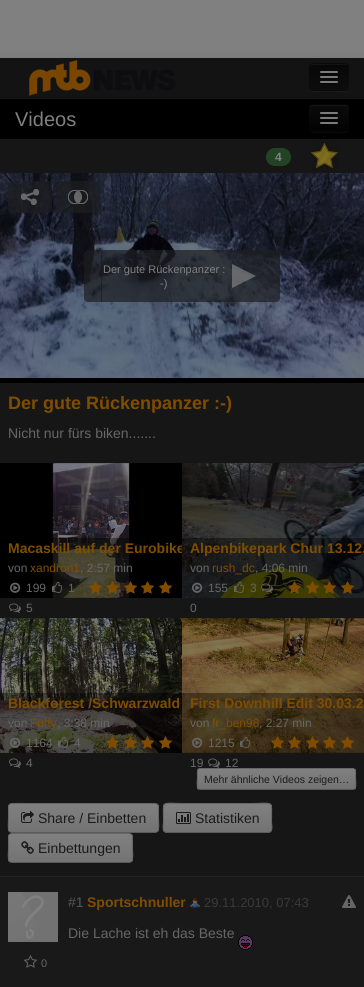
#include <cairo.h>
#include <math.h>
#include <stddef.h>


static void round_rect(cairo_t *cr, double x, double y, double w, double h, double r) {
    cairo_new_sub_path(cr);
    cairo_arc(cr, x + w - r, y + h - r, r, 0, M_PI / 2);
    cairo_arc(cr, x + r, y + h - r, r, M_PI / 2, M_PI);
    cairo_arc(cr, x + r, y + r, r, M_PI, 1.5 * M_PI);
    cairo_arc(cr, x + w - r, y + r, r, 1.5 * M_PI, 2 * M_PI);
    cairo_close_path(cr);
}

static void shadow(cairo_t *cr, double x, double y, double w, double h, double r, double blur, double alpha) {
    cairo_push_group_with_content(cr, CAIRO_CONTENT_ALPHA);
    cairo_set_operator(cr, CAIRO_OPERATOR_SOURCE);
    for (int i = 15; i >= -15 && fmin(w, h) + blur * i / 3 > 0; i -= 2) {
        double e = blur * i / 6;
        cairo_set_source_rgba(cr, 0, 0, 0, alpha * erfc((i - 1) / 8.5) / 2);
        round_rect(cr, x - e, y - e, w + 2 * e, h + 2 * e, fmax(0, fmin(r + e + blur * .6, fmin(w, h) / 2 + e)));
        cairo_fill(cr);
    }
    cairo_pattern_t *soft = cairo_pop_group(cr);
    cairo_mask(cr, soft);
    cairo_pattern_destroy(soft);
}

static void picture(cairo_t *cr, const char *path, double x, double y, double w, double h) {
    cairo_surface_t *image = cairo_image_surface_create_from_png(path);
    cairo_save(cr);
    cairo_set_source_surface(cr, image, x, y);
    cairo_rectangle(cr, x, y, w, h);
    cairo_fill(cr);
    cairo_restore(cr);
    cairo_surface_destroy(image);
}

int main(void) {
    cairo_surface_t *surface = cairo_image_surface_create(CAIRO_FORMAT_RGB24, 364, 987);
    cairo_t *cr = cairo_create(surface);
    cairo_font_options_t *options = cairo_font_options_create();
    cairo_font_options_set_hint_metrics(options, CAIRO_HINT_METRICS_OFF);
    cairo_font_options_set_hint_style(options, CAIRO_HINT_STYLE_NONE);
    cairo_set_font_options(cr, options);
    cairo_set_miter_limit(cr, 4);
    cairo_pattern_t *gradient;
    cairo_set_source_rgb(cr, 0.502, 0.502, 0.502);
    cairo_paint(cr);
    cairo_set_source_rgb(cr, 0, 0, 0);
    shadow(cr, 0, 59, 364, 40, 0, 5, 0.1);
    cairo_set_source_rgb(cr, 0.078, 0.078, 0.078);
    cairo_rectangle(cr, 0, 58, 364, 39);
    cairo_fill(cr);
    cairo_set_source_rgb(cr, 0.071, 0.071, 0.071);
    cairo_rectangle(cr, 0, 97, 364, 1);
    cairo_fill(cr);
    picture(cr, "img1.png", 29, 60, 147, 36);
    cairo_set_source_rgb(cr, 0.11, 0.11, 0.11);
    cairo_new_path(cr);
    cairo_move_to(cr, 309, 87);
    cairo_curve_to(cr, 309, 93, 314, 92, 318, 92);
    cairo_line_to(cr, 340, 92);
    cairo_curve_to(cr, 344, 92, 349, 93, 349, 87);
    cairo_curve_to(cr, 349, 89, 347, 91, 345, 91);
    cairo_line_to(cr, 313, 91);
    cairo_curve_to(cr, 311, 91, 309, 89, 309, 87);
    cairo_close_path(cr);
    cairo_fill(cr);
    cairo_set_source_rgb(cr, 0.039, 0.039, 0.039);
    round_rect(cr, 309, 63, 40, 28, 4);
    cairo_fill(cr);
    cairo_save(cr);
    round_rect(cr, 309, 63, 40, 28, 4);
    cairo_clip(cr);
    gradient = cairo_pattern_create_linear(329, 64, 329, 90);
    cairo_pattern_add_color_stop_rgba(gradient, 0, 0.027, 0.027, 0.027, 1);
    cairo_pattern_add_color_stop_rgba(gradient, 1, 0.051, 0.051, 0.051, 1);
    cairo_set_source(cr, gradient);
    cairo_pattern_destroy(gradient);
    cairo_rectangle(cr, 309, 64, 40, 26);
    cairo_fill(cr);
    cairo_restore(cr);
    cairo_set_source_rgb(cr, 0.075, 0.075, 0.075);
    cairo_new_path(cr);
    cairo_move_to(cr, 313, 65);
    cairo_line_to(cr, 345, 65);
    cairo_curve_to(cr, 347, 65, 348, 66, 348, 68);
    cairo_curve_to(cr, 348, 63, 344, 64, 339.5, 64);
    cairo_line_to(cr, 318.5, 64);
    cairo_curve_to(cr, 314, 64, 310, 63, 310, 68);
    cairo_curve_to(cr, 310, 66, 311, 65, 313, 65);
    cairo_close_path(cr);
    cairo_fill(cr);
    cairo_set_source_rgb(cr, 0.482, 0.482, 0.482);
    round_rect(cr, 320, 71, 18, 2, 1);
    cairo_fill(cr);
    round_rect(cr, 320, 76, 18, 2, 1);
    cairo_fill(cr);
    cairo_set_source_rgb(cr, 0.035, 0.035, 0.035);
    cairo_new_path(cr);
    cairo_move_to(cr, 320, 82.5);
    cairo_curve_to(cr, 319, 84.5, 323.5, 84, 323.5, 84);
    cairo_line_to(cr, 334.5, 84);
    cairo_curve_to(cr, 334.5, 84, 339, 84.5, 338, 82.5);
    cairo_curve_to(cr, 337, 83.5, 330.5, 83, 329, 83);
    cairo_curve_to(cr, 327.5, 83, 321, 83.5, 320, 82.5);
    cairo_close_path(cr);
    cairo_fill(cr);
    cairo_set_source_rgb(cr, 0.482, 0.482, 0.482);
    round_rect(cr, 320, 81, 18, 2, 1);
    cairo_fill(cr);
    cairo_set_source_rgb(cr, 0.086, 0.086, 0.086);
    cairo_rectangle(cr, 0, 98, 364, 778);
    cairo_fill(cr);
    cairo_set_source_rgb(cr, 0, 0, 0);
    cairo_rectangle(cr, 0, 99, 364, 40);
    cairo_fill(cr);
    cairo_select_font_face(cr, "Liberation Sans", CAIRO_FONT_SLANT_NORMAL, CAIRO_FONT_WEIGHT_NORMAL);
    cairo_set_font_size(cr, 20);
    cairo_set_source_rgb(cr, 0.502, 0.502, 0.502);
    cairo_move_to(cr, 15, 126);
    cairo_show_text(cr, "Videos");
    cairo_set_source_rgb(cr, 0.039, 0.039, 0.039);
    cairo_new_path(cr);
    cairo_move_to(cr, 309, 128);
    cairo_curve_to(cr, 309, 134, 314, 133, 318, 133);
    cairo_line_to(cr, 340, 133);
    cairo_curve_to(cr, 344, 133, 349, 134, 349, 128);
    cairo_curve_to(cr, 349, 130, 347, 132, 345, 132);
    cairo_line_to(cr, 313, 132);
    cairo_curve_to(cr, 311, 132, 309, 130, 309, 128);
    cairo_close_path(cr);
    cairo_fill(cr);
    cairo_set_source_rgb(cr, 0.027, 0.027, 0.027);
    round_rect(cr, 309, 104, 40, 28, 4);
    cairo_fill(cr);
    cairo_save(cr);
    round_rect(cr, 309, 104, 40, 28, 4);
    cairo_clip(cr);
    gradient = cairo_pattern_create_linear(329, 105, 329, 131);
    cairo_pattern_add_color_stop_rgba(gradient, 0, 0.043, 0.043, 0.043, 1);
    cairo_pattern_add_color_stop_rgba(gradient, 1, 0.008, 0.008, 0.008, 1);
    cairo_set_source(cr, gradient);
    cairo_pattern_destroy(gradient);
    cairo_rectangle(cr, 309, 105, 40, 26);
    cairo_fill(cr);
    cairo_restore(cr);
    cairo_set_source_rgb(cr, 0.086, 0.086, 0.086);
    cairo_new_path(cr);
    cairo_move_to(cr, 313, 106);
    cairo_line_to(cr, 345, 106);
    cairo_curve_to(cr, 347, 106, 348, 107, 348, 109);
    cairo_curve_to(cr, 348, 104, 344, 105, 339.5, 105);
    cairo_line_to(cr, 318.5, 105);
    cairo_curve_to(cr, 314, 105, 310, 104, 310, 109);
    cairo_curve_to(cr, 310, 107, 311, 106, 313, 106);
    cairo_close_path(cr);
    cairo_fill(cr);
    cairo_set_source_rgb(cr, 0.482, 0.482, 0.482);
    round_rect(cr, 320, 112, 18, 2, 1);
    cairo_fill(cr);
    round_rect(cr, 320, 117, 18, 2, 1);
    cairo_fill(cr);
    round_rect(cr, 320, 122, 18, 2, 1);
    cairo_fill(cr);
    cairo_set_source_rgb(cr, 0.137, 0.267, 0.141);
    round_rect(cr, 266, 148, 25, 18, 9);
    cairo_fill(cr);
    cairo_select_font_face(cr, "Liberation Sans", CAIRO_FONT_SLANT_NORMAL, CAIRO_FONT_WEIGHT_BOLD);
    cairo_set_font_size(cr, 12);
    cairo_set_source_rgb(cr, 0.502, 0.502, 0.502);
    cairo_move_to(cr, 275, 161);
    cairo_show_text(cr, "4");
    picture(cr, "img2.png", 311, 142, 27, 27);
    picture(cr, "img7.png", 0, 173, 364, 205);
    picture(cr, "img3.png", 8, 181, 44, 32);
    picture(cr, "img4.png", 21, 189, 18, 16);
    picture(cr, "img5.png", 56, 181, 44, 32);
    picture(cr, "img6.png", 68, 190, 20, 14);
    picture(cr, "img8.png", 84, 250, 196, 52);
    cairo_select_font_face(cr, "Liberation Sans", CAIRO_FONT_SLANT_NORMAL, CAIRO_FONT_WEIGHT_NORMAL);
    cairo_set_font_size(cr, 11);
    cairo_move_to(cr, 103, 273);
    cairo_show_text(cr, "Der gute Rückenpanzer :");
    cairo_move_to(cr, 160, 287);
    cairo_show_text(cr, "-)");
    picture(cr, "img9.png", 232, 264, 24, 24);
    cairo_set_source_rgb(cr, 0, 0, 0);
    cairo_rectangle(cr, 0, 378, 364, 5);
    cairo_fill(cr);
    cairo_select_font_face(cr, "Liberation Sans", CAIRO_FONT_SLANT_NORMAL, CAIRO_FONT_WEIGHT_BOLD);
    cairo_set_font_size(cr, 18);
    cairo_set_source_rgb(cr, 0.502, 0.302, 0);
    cairo_move_to(cr, 8, 409);
    cairo_show_text(cr, "Der gute Rückenpanzer :-)");
    cairo_select_font_face(cr, "Liberation Sans", CAIRO_FONT_SLANT_NORMAL, CAIRO_FONT_WEIGHT_NORMAL);
    cairo_set_font_size(cr, 14);
    cairo_set_source_rgb(cr, 0.4, 0.4, 0.4);
    cairo_move_to(cr, 8, 438);
    cairo_show_text(cr, "Nicht nur fürs biken.......");
    picture(cr, "img10.png", 0, 463, 182, 135);
    cairo_set_source_rgba(cr, 0, 0, 0, 0.4);
    cairo_rectangle(cr, 52, 538, 78, 60);
    cairo_fill(cr);
    cairo_select_font_face(cr, "Liberation Sans", CAIRO_FONT_SLANT_NORMAL, CAIRO_FONT_WEIGHT_BOLD);
    cairo_set_source_rgb(cr, 0.502, 0.302, 0);
    cairo_move_to(cr, 8, 553);
    cairo_show_text(cr, "Macaskill auf der Eurobike");
    cairo_select_font_face(cr, "Liberation Sans", CAIRO_FONT_SLANT_NORMAL, CAIRO_FONT_WEIGHT_NORMAL);
    cairo_set_font_size(cr, 12);
    cairo_set_source_rgb(cr, 0.4, 0.4, 0.4);
    cairo_move_to(cr, 8, 572);
    cairo_show_text(cr, "von");
    cairo_set_source_rgb(cr, 0.502, 0.302, 0);
    cairo_move_to(cr, 30, 572);
    cairo_show_text(cr, "xandron1");
    cairo_set_source_rgb(cr, 0.4, 0.4, 0.4);
    cairo_move_to(cr, 80, 572);
    cairo_show_text(cr, ", 2:57 min");
    picture(cr, "img11.png", 10, 582, 11, 11);
    cairo_move_to(cr, 26, 592);
    cairo_show_text(cr, "199");
    picture(cr, "img12.png", 52, 581, 11, 12);
    cairo_move_to(cr, 68, 592);
    cairo_show_text(cr, "1");
    picture(cr, "img13.png", 9, 603, 12, 10);
    cairo_move_to(cr, 26, 612);
    cairo_show_text(cr, "5");
    picture(cr, "img14.png", 89, 581, 13, 13);
    picture(cr, "img15.png", 106, 581, 13, 13);
    picture(cr, "img16.png", 124, 581, 13, 13);
    picture(cr, "img17.png", 141, 581, 13, 13);
    picture(cr, "img17.png", 159, 581, 13, 13);
    picture(cr, "img18.png", 182, 463, 182, 135);
    cairo_set_source_rgba(cr, 0, 0, 0, 0.4);
    cairo_rectangle(cr, 182, 538, 182, 60);
    cairo_fill(cr);
    cairo_select_font_face(cr, "Liberation Sans", CAIRO_FONT_SLANT_NORMAL, CAIRO_FONT_WEIGHT_BOLD);
    cairo_set_font_size(cr, 14);
    cairo_set_source_rgb(cr, 0.502, 0.302, 0);
    cairo_move_to(cr, 190, 553);
    cairo_show_text(cr, "Alpenbikepark Chur 13.12.");
    cairo_select_font_face(cr, "Liberation Sans", CAIRO_FONT_SLANT_NORMAL, CAIRO_FONT_WEIGHT_NORMAL);
    cairo_set_font_size(cr, 12);
    cairo_set_source_rgb(cr, 0.4, 0.4, 0.4);
    cairo_move_to(cr, 190, 572);
    cairo_show_text(cr, "von");
    cairo_set_source_rgb(cr, 0.502, 0.302, 0);
    cairo_move_to(cr, 212, 572);
    cairo_show_text(cr, "rush_dc");
    cairo_set_source_rgb(cr, 0.4, 0.4, 0.4);
    cairo_move_to(cr, 255, 572);
    cairo_show_text(cr, ", 4:06 min");
    picture(cr, "img19.png", 192, 582, 11, 11);
    cairo_move_to(cr, 208, 592);
    cairo_show_text(cr, "155");
    picture(cr, "img20.png", 234, 581, 11, 12);
    cairo_move_to(cr, 250, 592);
    cairo_show_text(cr, "3");
    picture(cr, "img21.png", 261, 583, 12, 10);
    cairo_move_to(cr, 190, 612);
    cairo_show_text(cr, "0");
    picture(cr, "img22.png", 288, 581, 13, 13);
    picture(cr, "img23.png", 306, 581, 13, 13);
    picture(cr, "img24.png", 323, 581, 13, 13);
    picture(cr, "img25.png", 341, 581, 13, 13);
    picture(cr, "img26.png", 0, 618, 182, 135);
    cairo_set_source_rgba(cr, 0, 0, 0, 0.4);
    cairo_rectangle(cr, 0, 693, 182, 60);
    cairo_fill(cr);
    cairo_select_font_face(cr, "Liberation Sans", CAIRO_FONT_SLANT_NORMAL, CAIRO_FONT_WEIGHT_BOLD);
    cairo_set_font_size(cr, 14);
    cairo_set_source_rgb(cr, 0.502, 0.302, 0);
    cairo_move_to(cr, 8, 708);
    cairo_show_text(cr, "Blackforest /Schwarzwald");
    cairo_select_font_face(cr, "Liberation Sans", CAIRO_FONT_SLANT_NORMAL, CAIRO_FONT_WEIGHT_NORMAL);
    cairo_set_font_size(cr, 12);
    cairo_set_source_rgb(cr, 0.4, 0.4, 0.4);
    cairo_move_to(cr, 8, 727);
    cairo_show_text(cr, "von");
    cairo_set_source_rgb(cr, 0.502, 0.302, 0);
    cairo_move_to(cr, 30, 727);
    cairo_show_text(cr, "Fuffy");
    cairo_set_source_rgb(cr, 0.4, 0.4, 0.4);
    cairo_move_to(cr, 57, 727);
    cairo_show_text(cr, ", 3:38 min");
    picture(cr, "img27.png", 10, 737, 11, 11);
    cairo_move_to(cr, 26, 747);
    cairo_show_text(cr, "1164");
    picture(cr, "img28.png", 58, 736, 11, 12);
    cairo_move_to(cr, 74, 747);
    cairo_show_text(cr, "4");
    picture(cr, "img13.png", 9, 758, 12, 10);
    cairo_move_to(cr, 26, 767);
    cairo_show_text(cr, "4");
    picture(cr, "img29.png", 106, 736, 13, 13);
    picture(cr, "img30.png", 124, 736, 13, 13);
    picture(cr, "img31.png", 141, 736, 13, 13);
    picture(cr, "img32.png", 159, 736, 13, 13);
    picture(cr, "img33.png", 182, 618, 182, 135);
    cairo_set_source_rgba(cr, 0, 0, 0, 0.4);
    cairo_rectangle(cr, 182, 693, 182, 60);
    cairo_fill(cr);
    cairo_select_font_face(cr, "Liberation Sans", CAIRO_FONT_SLANT_NORMAL, CAIRO_FONT_WEIGHT_BOLD);
    cairo_set_font_size(cr, 14);
    cairo_set_source_rgb(cr, 0.502, 0.302, 0);
    cairo_move_to(cr, 190, 708);
    cairo_show_text(cr, "First Downhill Edit 30.03.2");
    cairo_select_font_face(cr, "Liberation Sans", CAIRO_FONT_SLANT_NORMAL, CAIRO_FONT_WEIGHT_NORMAL);
    cairo_set_font_size(cr, 12);
    cairo_set_source_rgb(cr, 0.4, 0.4, 0.4);
    cairo_move_to(cr, 190, 727);
    cairo_show_text(cr, "von");
    cairo_set_source_rgb(cr, 0.502, 0.302, 0);
    cairo_move_to(cr, 212, 727);
    cairo_show_text(cr, "fr_ben98");
    cairo_set_source_rgb(cr, 0.4, 0.4, 0.4);
    cairo_move_to(cr, 259, 727);
    cairo_show_text(cr, ", 2:27 min");
    picture(cr, "img34.png", 192, 737, 11, 11);
    cairo_move_to(cr, 208, 747);
    cairo_show_text(cr, "1215");
    picture(cr, "img35.png", 240, 736, 11, 12);
    cairo_move_to(cr, 190, 767);
    cairo_show_text(cr, "19");
    picture(cr, "img13.png", 208, 758, 12, 10);
    cairo_move_to(cr, 225, 767);
    cairo_show_text(cr, "12");
    picture(cr, "img36.png", 271, 736, 13, 13);
    picture(cr, "img37.png", 288, 736, 13, 13);
    picture(cr, "img38.png", 306, 736, 13, 13);
    picture(cr, "img39.png", 323, 736, 13, 13);
    picture(cr, "img40.png", 341, 736, 13, 13);
    cairo_save(cr);
    round_rect(cr, 197, 768, 159, 22, 3);
    cairo_clip(cr);
    gradient = cairo_pattern_create_linear(277, 769, 277, 789);
    cairo_pattern_add_color_stop_rgba(gradient, 0, 0.502, 0.502, 0.502, 1);
    cairo_pattern_add_color_stop_rgba(gradient, 1, 0.451, 0.451, 0.451, 1);
    cairo_set_source(cr, gradient);
    cairo_pattern_destroy(gradient);
    cairo_rectangle(cr, 197, 769, 159, 20);
    cairo_fill(cr);
    cairo_restore(cr);
    cairo_new_path(cr);
    cairo_move_to(cr, 355, 789);
    cairo_line_to(cr, 353, 789.5);
    cairo_line_to(cr, 200, 789.5);
    cairo_line_to(cr, 198, 789);
    cairo_set_source_rgb(cr, 0.353, 0.353, 0.353);
    cairo_set_line_width(cr, 1);
    cairo_stroke(cr);
    cairo_new_path(cr);
    cairo_move_to(cr, 198, 789);
    cairo_curve_to(cr, 196.5, 787, 197.5, 779, 197.5, 776.5);
    cairo_curve_to(cr, 197.5, 774.5, 196.5, 768.5, 200, 768.5);
    cairo_line_to(cr, 353, 768.5);
    cairo_curve_to(cr, 356.5, 768.5, 355.5, 774.5, 355.5, 776.5);
    cairo_curve_to(cr, 355.5, 779, 356.5, 787, 355, 789);
    cairo_set_source_rgb(cr, 0.4, 0.4, 0.4);
    cairo_stroke(cr);
    cairo_set_font_size(cr, 10.5);
    cairo_set_source_rgb(cr, 0.102, 0.102, 0.102);
    cairo_move_to(cr, 204, 783);
    cairo_show_text(cr, "Mehr ähnliche Videos zeigen…");
    cairo_save(cr);
    round_rect(cr, 8, 803, 151, 30, 4);
    cairo_clip(cr);
    gradient = cairo_pattern_create_linear(84, 804, 84, 832);
    cairo_pattern_add_color_stop_rgba(gradient, 0, 0.502, 0.502, 0.502, 1);
    cairo_pattern_add_color_stop_rgba(gradient, 1, 0.451, 0.451, 0.451, 1);
    cairo_set_source(cr, gradient);
    cairo_pattern_destroy(gradient);
    cairo_rectangle(cr, 8, 804, 151, 28);
    cairo_fill(cr);
    cairo_restore(cr);
    cairo_set_source_rgba(cr, 0.502, 0.502, 0.502, 0.2);
    cairo_new_path(cr);
    cairo_move_to(cr, 12, 805);
    cairo_line_to(cr, 155, 805);
    cairo_curve_to(cr, 157, 805, 158, 806, 158, 808);
    cairo_curve_to(cr, 158, 806, 158, 805, 156, 804);
    cairo_line_to(cr, 36, 804);
    cairo_curve_to(cr, 28, 804, 9, 799, 9, 808);
    cairo_curve_to(cr, 9, 806, 10, 805, 12, 805);
    cairo_close_path(cr);
    cairo_fill(cr);
    cairo_new_path(cr);
    cairo_move_to(cr, 157.5, 831.5);
    cairo_curve_to(cr, 157, 832, 156, 832.5, 155, 832.5);
    cairo_line_to(cr, 12, 832.5);
    cairo_curve_to(cr, 11, 832.5, 10, 832, 9.5, 831.5);
    cairo_set_source_rgb(cr, 0.353, 0.353, 0.353);
    cairo_stroke(cr);
    cairo_new_path(cr);
    cairo_move_to(cr, 9.5, 831.5);
    cairo_curve_to(cr, 7.5, 829.5, 8.5, 821, 8.5, 818);
    cairo_line_to(cr, 8.5, 810.5);
    cairo_curve_to(cr, 8.5, 808, 8, 803.5, 12, 803.5);
    cairo_line_to(cr, 155, 803.5);
    cairo_curve_to(cr, 159, 803.5, 158.5, 808, 158.5, 810.5);
    cairo_line_to(cr, 158.5, 818);
    cairo_curve_to(cr, 158.5, 821, 159.5, 829.5, 157.5, 831.5);
    cairo_set_source_rgb(cr, 0.4, 0.4, 0.4);
    cairo_stroke(cr);
    picture(cr, "img41.png", 21, 811, 13, 12);
    cairo_set_font_size(cr, 14);
    cairo_set_source_rgb(cr, 0.102, 0.102, 0.102);
    cairo_move_to(cr, 38, 823);
    cairo_show_text(cr, "Share / Einbetten");
    cairo_set_source_rgb(cr, 0.482, 0.482, 0.482);
    round_rect(cr, 163, 803, 109, 30, 4);
    cairo_fill(cr);
    cairo_save(cr);
    round_rect(cr, 163, 803, 109, 30, 4);
    cairo_clip(cr);
    gradient = cairo_pattern_create_linear(218, 804, 218, 832);
    cairo_pattern_add_color_stop_rgba(gradient, 0, 0.502, 0.502, 0.502, 1);
    cairo_pattern_add_color_stop_rgba(gradient, 1, 0.451, 0.451, 0.451, 1);
    cairo_set_source(cr, gradient);
    cairo_pattern_destroy(gradient);
    cairo_rectangle(cr, 163, 804, 109, 28);
    cairo_fill(cr);
    cairo_restore(cr);
    cairo_set_source_rgba(cr, 0.502, 0.502, 0.502, 0.2);
    cairo_new_path(cr);
    cairo_move_to(cr, 167, 805);
    cairo_line_to(cr, 268, 805);
    cairo_curve_to(cr, 270, 805, 271, 806, 271, 808);
    cairo_curve_to(cr, 271, 799, 254, 804, 251, 804);
    cairo_line_to(cr, 184, 804);
    cairo_curve_to(cr, 181, 804, 164, 799, 164, 808);
    cairo_curve_to(cr, 164, 806, 165, 805, 167, 805);
    cairo_close_path(cr);
    cairo_fill(cr);
    cairo_new_path(cr);
    cairo_move_to(cr, 270.5, 831.5);
    cairo_line_to(cr, 268, 832.5);
    cairo_line_to(cr, 166.5, 832.5);
    cairo_line_to(cr, 164.5, 831.5);
    cairo_set_source_rgb(cr, 0.353, 0.353, 0.353);
    cairo_stroke(cr);
    cairo_new_path(cr);
    cairo_move_to(cr, 164.5, 831.5);
    cairo_curve_to(cr, 162, 829, 163.5, 824.5, 163.5, 821.5);
    cairo_curve_to(cr, 163.5, 799.5, 160, 803.5, 184, 803.5);
    cairo_line_to(cr, 251, 803.5);
    cairo_curve_to(cr, 275, 803.5, 271.5, 799.5, 271.5, 821.5);
    cairo_curve_to(cr, 271.5, 824.5, 273, 829, 270.5, 831.5);
    cairo_set_source_rgb(cr, 0.4, 0.4, 0.4);
    cairo_stroke(cr);
    picture(cr, "img42.png", 176, 812, 15, 12);
    cairo_set_source_rgb(cr, 0.102, 0.102, 0.102);
    cairo_move_to(cr, 195, 823);
    cairo_show_text(cr, "Statistiken");
    cairo_save(cr);
    round_rect(cr, 8, 833, 125, 30, 4);
    cairo_clip(cr);
    gradient = cairo_pattern_create_linear(71, 834, 71, 862);
    cairo_pattern_add_color_stop_rgba(gradient, 0, 0.502, 0.502, 0.502, 1);
    cairo_pattern_add_color_stop_rgba(gradient, 1, 0.451, 0.451, 0.451, 1);
    cairo_set_source(cr, gradient);
    cairo_pattern_destroy(gradient);
    cairo_rectangle(cr, 8, 834, 125, 28);
    cairo_fill(cr);
    cairo_restore(cr);
    cairo_set_source_rgba(cr, 0.502, 0.502, 0.502, 0.2);
    cairo_new_path(cr);
    cairo_move_to(cr, 12, 835);
    cairo_line_to(cr, 129, 835);
    cairo_curve_to(cr, 131, 835, 132, 836, 132, 838);
    cairo_curve_to(cr, 132, 836, 131, 834, 129, 834);
    cairo_line_to(cr, 32, 834);
    cairo_curve_to(cr, 31, 834, 9, 829, 9, 838);
    cairo_curve_to(cr, 9, 836, 10, 835, 12, 835);
    cairo_close_path(cr);
    cairo_fill(cr);
    cairo_new_path(cr);
    cairo_move_to(cr, 131.5, 861.5);
    cairo_curve_to(cr, 131, 862, 130, 862.5, 129, 862.5);
    cairo_line_to(cr, 12, 862.5);
    cairo_curve_to(cr, 11, 862.5, 10, 862, 9.5, 861.5);
    cairo_set_source_rgb(cr, 0.353, 0.353, 0.353);
    cairo_stroke(cr);
    cairo_new_path(cr);
    cairo_move_to(cr, 9.5, 861.5);
    cairo_curve_to(cr, 7.5, 859.5, 8.5, 851, 8.5, 848);
    cairo_line_to(cr, 8.5, 840.5);
    cairo_curve_to(cr, 8.5, 838, 8, 833.5, 12, 833.5);
    cairo_line_to(cr, 129, 833.5);
    cairo_curve_to(cr, 133, 833.5, 132.5, 838, 132.5, 840.5);
    cairo_line_to(cr, 132.5, 848);
    cairo_curve_to(cr, 132.5, 851, 133.5, 859.5, 131.5, 861.5);
    cairo_set_source_rgb(cr, 0.4, 0.4, 0.4);
    cairo_stroke(cr);
    picture(cr, "img43.png", 21, 841, 13, 13);
    cairo_set_source_rgb(cr, 0.102, 0.102, 0.102);
    cairo_move_to(cr, 38, 853);
    cairo_show_text(cr, "Einbettungen");
    cairo_set_source_rgb(cr, 0.098, 0.098, 0.098);
    cairo_rectangle(cr, 0, 877, 364, 110);
    cairo_fill(cr);
    cairo_set_source_rgb(cr, 0.133, 0.133, 0.133);
    cairo_rectangle(cr, 0, 876, 364, 1);
    cairo_fill(cr);
    cairo_set_source_rgb(cr, 0.333, 0.333, 0.333);
    cairo_move_to(cr, 68, 907);
    cairo_show_text(cr, "#1");
    cairo_select_font_face(cr, "Liberation Sans", CAIRO_FONT_SLANT_NORMAL, CAIRO_FONT_WEIGHT_BOLD);
    cairo_set_source_rgb(cr, 0.502, 0.302, 0);
    cairo_move_to(cr, 87, 907);
    cairo_show_text(cr, "Sportschnuller");
    picture(cr, "img44.png", 190, 898, 10, 10);
    cairo_select_font_face(cr, "Liberation Sans", CAIRO_FONT_SLANT_NORMAL, CAIRO_FONT_WEIGHT_NORMAL);
    cairo_set_font_size(cr, 13);
    cairo_set_source_rgb(cr, 0.224, 0.224, 0.224);
    cairo_move_to(cr, 204, 907);
    cairo_show_text(cr, "29.11.2010, 07:43");
    picture(cr, "img45.png", 342, 895, 14, 13);
    cairo_set_font_size(cr, 14);
    cairo_set_source_rgb(cr, 0.4, 0.4, 0.4);
    cairo_move_to(cr, 68, 938);
    cairo_show_text(cr, "Die Lache ist eh das Beste");
    picture(cr, "img46.png", 238, 935, 15, 15);
    picture(cr, "img47.png", 8, 892, 50, 50);
    picture(cr, "img48.png", 24, 955, 13, 13);
    cairo_set_font_size(cr, 11);
    cairo_move_to(cr, 41, 967);
    cairo_show_text(cr, "0");
    cairo_surface_write_to_png(surface, "page.png");
    cairo_font_options_destroy(options);
    cairo_destroy(cr);
    cairo_surface_destroy(surface);
    return 0;
}
